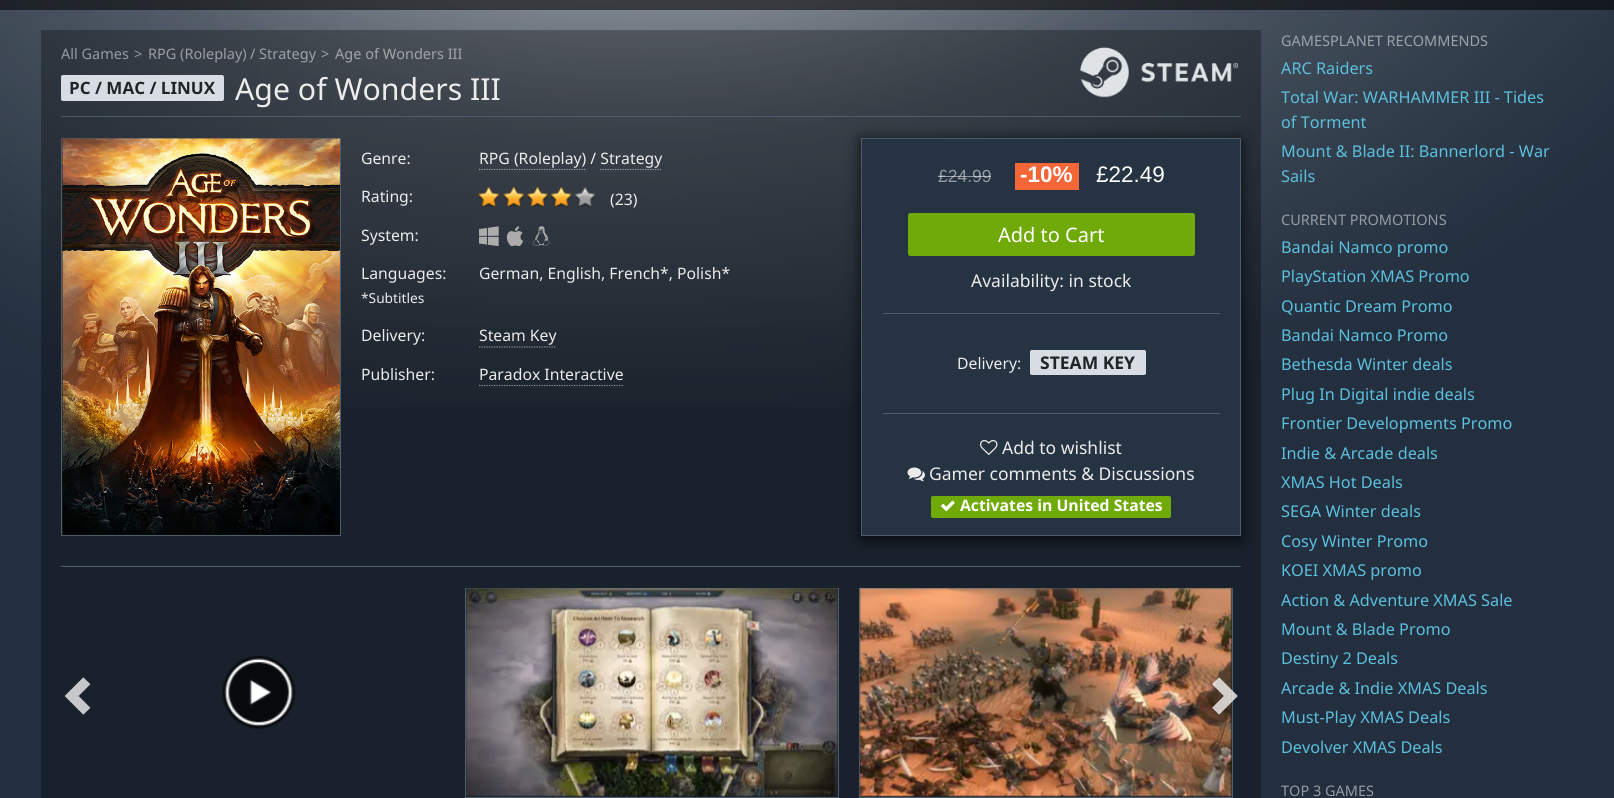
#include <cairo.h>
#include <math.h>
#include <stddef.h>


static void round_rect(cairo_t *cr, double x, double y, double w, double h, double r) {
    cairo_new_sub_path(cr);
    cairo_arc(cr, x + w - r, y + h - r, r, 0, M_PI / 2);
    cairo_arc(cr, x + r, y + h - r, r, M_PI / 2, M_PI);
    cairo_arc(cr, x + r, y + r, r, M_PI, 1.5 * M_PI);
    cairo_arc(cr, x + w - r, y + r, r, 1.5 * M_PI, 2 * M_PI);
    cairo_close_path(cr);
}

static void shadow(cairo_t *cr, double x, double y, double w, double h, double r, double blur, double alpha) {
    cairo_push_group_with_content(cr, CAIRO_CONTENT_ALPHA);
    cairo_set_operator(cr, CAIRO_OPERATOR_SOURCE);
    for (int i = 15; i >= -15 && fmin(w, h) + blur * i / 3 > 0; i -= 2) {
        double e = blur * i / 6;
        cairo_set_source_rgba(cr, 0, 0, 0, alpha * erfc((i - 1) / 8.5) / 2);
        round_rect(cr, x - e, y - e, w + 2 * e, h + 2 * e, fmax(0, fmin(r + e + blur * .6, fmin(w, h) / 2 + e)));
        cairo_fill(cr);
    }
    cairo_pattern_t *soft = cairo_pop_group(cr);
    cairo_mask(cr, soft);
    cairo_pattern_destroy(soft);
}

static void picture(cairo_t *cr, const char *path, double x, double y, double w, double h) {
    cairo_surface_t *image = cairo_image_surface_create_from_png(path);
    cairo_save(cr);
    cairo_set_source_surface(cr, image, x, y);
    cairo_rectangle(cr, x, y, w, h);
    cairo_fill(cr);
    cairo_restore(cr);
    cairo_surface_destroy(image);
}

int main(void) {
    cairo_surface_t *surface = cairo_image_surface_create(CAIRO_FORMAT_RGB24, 1614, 798);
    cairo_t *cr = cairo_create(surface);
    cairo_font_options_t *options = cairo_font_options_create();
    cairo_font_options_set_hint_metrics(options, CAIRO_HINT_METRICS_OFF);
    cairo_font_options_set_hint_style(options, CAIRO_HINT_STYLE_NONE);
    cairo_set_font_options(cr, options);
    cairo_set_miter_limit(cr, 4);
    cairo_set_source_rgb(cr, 0.137, 0.184, 0.243);
    cairo_paint(cr);
    picture(cr, "img1.png", 0, 0, 1614, 407);
    cairo_set_source_rgba(cr, 0, 0, 0, 0.55);
    cairo_rectangle(cr, 0, 0, 1614, 10);
    cairo_fill(cr);
    cairo_set_source_rgba(cr, 0, 0, 0, 0.3);
    cairo_rectangle(cr, 41, 30, 1220, 768);
    cairo_fill(cr);
    cairo_select_font_face(cr, "Noto Sans", CAIRO_FONT_SLANT_NORMAL, CAIRO_FONT_WEIGHT_NORMAL);
    cairo_set_font_size(cr, 14.5);
    cairo_set_source_rgb(cr, 0.584, 0.608, 0.635);
    cairo_move_to(cr, 61, 59);
    cairo_show_text(cr, "All Games");
    cairo_move_to(cr, 134, 59);
    cairo_show_text(cr, ">");
    cairo_set_source_rgb(cr, 0.608, 0.62, 0.635);
    cairo_move_to(cr, 148, 59);
    cairo_show_text(cr, "RPG (Roleplay)");
    cairo_set_source_rgb(cr, 0.612, 0.635, 0.659);
    cairo_move_to(cr, 250, 59);
    cairo_show_text(cr, "/");
    cairo_move_to(cr, 259, 59);
    cairo_show_text(cr, "Strategy");
    cairo_move_to(cr, 321, 59);
    cairo_show_text(cr, ">");
    cairo_set_source_rgb(cr, 0.635, 0.647, 0.659);
    cairo_move_to(cr, 335, 59);
    cairo_show_text(cr, "Age of Wonders III");
    cairo_set_source_rgb(cr, 0.843, 0.867, 0.886);
    round_rect(cr, 61, 75, 163, 26, 2);
    cairo_fill(cr);
    cairo_select_font_face(cr, "Noto Sans", CAIRO_FONT_SLANT_NORMAL, CAIRO_FONT_WEIGHT_BOLD);
    cairo_set_font_size(cr, 17);
    cairo_set_source_rgb(cr, 0.129, 0.145, 0.161);
    cairo_move_to(cr, 69, 94);
    cairo_show_text(cr, "PC / MAC / LINUX");
    cairo_set_source_rgb(cr, 0.306, 0.365, 0.424);
    cairo_rectangle(cr, 61, 116, 1180, 1);
    cairo_fill(cr);
    cairo_select_font_face(cr, "Noto Sans", CAIRO_FONT_SLANT_NORMAL, CAIRO_FONT_WEIGHT_NORMAL);
    cairo_set_font_size(cr, 30.25);
    cairo_set_source_rgb(cr, 0.922, 0.922, 0.922);
    cairo_move_to(cr, 235, 100);
    cairo_show_text(cr, "Age of Wonders III");
    picture(cr, "img2.png", 1080, 47, 158, 51);
    cairo_rectangle(cr, 61.5, 138.5, 279, 397);
    cairo_set_source_rgb(cr, 0.306, 0.365, 0.424);
    cairo_set_line_width(cr, 1);
    cairo_stroke(cr);
    picture(cr, "img3.png", 62, 138, 278, 397);
    cairo_set_font_size(cr, 15.75);
    cairo_set_source_rgb(cr, 0.922, 0.922, 0.922);
    cairo_move_to(cr, 361, 164);
    cairo_show_text(cr, "Genre:");
    cairo_move_to(cr, 479, 164);
    cairo_show_text(cr, "RPG (Roleplay) / Strategy");
    cairo_new_path(cr);
    cairo_move_to(cr, 479, 169.5);
    cairo_line_to(cr, 586, 169.5);
    cairo_set_source_rgb(cr, 0.604, 0.616, 0.635);
    cairo_set_line_width(cr, 1.2);
    cairo_set_dash(cr, (double[]){1.25, 1.25}, 2, 0);
    cairo_stroke(cr);
    cairo_new_path(cr);
    cairo_move_to(cr, 600, 169.5);
    cairo_line_to(cr, 661, 169.5);
    cairo_stroke(cr);
    cairo_set_source_rgb(cr, 0.922, 0.922, 0.922);
    cairo_move_to(cr, 361, 202);
    cairo_show_text(cr, "Rating:");
    picture(cr, "img4.png", 478, 187, 21, 20);
    picture(cr, "img5.png", 503, 187, 21, 20);
    picture(cr, "img6.png", 527, 187, 21, 20);
    picture(cr, "img7.png", 551, 187, 21, 20);
    picture(cr, "img8.png", 575, 187, 20, 20);
    cairo_move_to(cr, 610, 205);
    cairo_show_text(cr, "(23)");
    cairo_move_to(cr, 361, 241);
    cairo_show_text(cr, "System:");
    picture(cr, "img9.png", 479, 226, 20, 20);
    picture(cr, "img10.png", 506, 226, 17, 20);
    picture(cr, "img11.png", 533, 226, 17, 20);
    cairo_move_to(cr, 361, 279);
    cairo_show_text(cr, "Languages:");
    cairo_set_font_size(cr, 13.75);
    cairo_move_to(cr, 361, 303);
    cairo_show_text(cr, "*Subtitles");
    cairo_set_font_size(cr, 15.75);
    cairo_move_to(cr, 479, 279);
    cairo_show_text(cr, "German, English, French*, Polish*");
    cairo_move_to(cr, 361, 341);
    cairo_show_text(cr, "Delivery:");
    cairo_move_to(cr, 479, 341);
    cairo_show_text(cr, "Steam Key");
    cairo_new_path(cr);
    cairo_move_to(cr, 479, 347);
    cairo_line_to(cr, 556, 347);
    cairo_set_source_rgb(cr, 0.565, 0.58, 0.6);
    cairo_stroke(cr);
    cairo_set_source_rgb(cr, 0.922, 0.922, 0.922);
    cairo_move_to(cr, 361, 380);
    cairo_show_text(cr, "Publisher:");
    cairo_move_to(cr, 479, 380);
    cairo_show_text(cr, "Paradox Interactive");
    cairo_new_path(cr);
    cairo_move_to(cr, 479, 385.5);
    cairo_line_to(cr, 624, 385.5);
    cairo_set_source_rgb(cr, 0.557, 0.573, 0.592);
    cairo_stroke(cr);
    cairo_set_source_rgb(cr, 0, 0, 0);
    shadow(cr, 861, 140, 380, 399, 0, 7.5, 0.75);
    cairo_set_source_rgb(cr, 0.149, 0.2, 0.263);
    cairo_rectangle(cr, 861.5, 138.5, 379, 397);
    cairo_fill_preserve(cr);
    cairo_set_source_rgb(cr, 0.306, 0.365, 0.424);
    cairo_set_line_width(cr, 1);
    cairo_set_dash(cr, NULL, 0, 0);
    cairo_stroke(cr);
    cairo_select_font_face(cr, "Liberation Sans", CAIRO_FONT_SLANT_NORMAL, CAIRO_FONT_WEIGHT_NORMAL);
    cairo_set_font_size(cr, 17.5);
    cairo_set_source_rgb(cr, 0.584, 0.608, 0.635);
    cairo_move_to(cr, 938, 182);
    cairo_show_text(cr, "£24.99");
    cairo_set_source_rgba(cr, 1, 1, 1, 0.5);
    cairo_rectangle(cr, 938, 176, 53, 1);
    cairo_fill(cr);
    cairo_set_source_rgb(cr, 0.949, 0.4, 0.22);
    cairo_rectangle(cr, 1015, 163, 64, 27);
    cairo_fill(cr);
    cairo_select_font_face(cr, "Liberation Sans", CAIRO_FONT_SLANT_NORMAL, CAIRO_FONT_WEIGHT_BOLD);
    cairo_set_font_size(cr, 22.5);
    cairo_set_source_rgb(cr, 1, 1, 1);
    cairo_move_to(cr, 1020, 182);
    cairo_show_text(cr, "-10%");
    cairo_select_font_face(cr, "Liberation Sans", CAIRO_FONT_SLANT_NORMAL, CAIRO_FONT_WEIGHT_NORMAL);
    cairo_move_to(cr, 1096, 182);
    cairo_show_text(cr, "£22.49");
    cairo_set_source_rgb(cr, 0.435, 0.667, 0.039);
    round_rect(cr, 908.5, 213.5, 286, 42, 2);
    cairo_fill_preserve(cr);
    cairo_stroke(cr);
    cairo_select_font_face(cr, "Noto Sans", CAIRO_FONT_SLANT_NORMAL, CAIRO_FONT_WEIGHT_NORMAL);
    cairo_set_font_size(cr, 20);
    cairo_set_source_rgb(cr, 1, 1, 1);
    cairo_move_to(cr, 998, 242);
    cairo_show_text(cr, "Add to Cart");
    cairo_set_font_size(cr, 17.5);
    cairo_set_source_rgb(cr, 0.922, 0.922, 0.922);
    cairo_move_to(cr, 971, 287);
    cairo_show_text(cr, "Availability: in stock");
    cairo_set_source_rgb(cr, 0.306, 0.365, 0.424);
    cairo_rectangle(cr, 883, 313, 337, 1);
    cairo_fill(cr);
    cairo_set_font_size(cr, 15.75);
    cairo_set_source_rgb(cr, 0.922, 0.922, 0.922);
    cairo_move_to(cr, 957, 369);
    cairo_show_text(cr, "Delivery:");
    cairo_set_source_rgb(cr, 0.843, 0.867, 0.886);
    round_rect(cr, 1030, 350, 116, 25, 2);
    cairo_fill(cr);
    cairo_select_font_face(cr, "Noto Sans", CAIRO_FONT_SLANT_NORMAL, CAIRO_FONT_WEIGHT_BOLD);
    cairo_set_font_size(cr, 17.5);
    cairo_set_source_rgb(cr, 0.129, 0.145, 0.161);
    cairo_move_to(cr, 1040, 369);
    cairo_show_text(cr, "STEAM KEY");
    cairo_set_source_rgb(cr, 0.306, 0.365, 0.424);
    cairo_rectangle(cr, 883, 413, 337, 1);
    cairo_fill(cr);
    picture(cr, "img12.png", 980, 440, 18, 15);
    cairo_select_font_face(cr, "Noto Sans", CAIRO_FONT_SLANT_NORMAL, CAIRO_FONT_WEIGHT_NORMAL);
    cairo_set_source_rgb(cr, 0.922, 0.922, 0.922);
    cairo_move_to(cr, 1002, 454);
    cairo_show_text(cr, "Add to wishlist");
    picture(cr, "img13.png", 907, 467, 18, 15);
    cairo_move_to(cr, 929, 480);
    cairo_show_text(cr, "Gamer comments & Discussions");
    cairo_set_source_rgb(cr, 0.435, 0.667, 0.039);
    round_rect(cr, 931, 496, 240, 22, 2);
    cairo_fill(cr);
    picture(cr, "img14.png", 941, 500, 14, 12);
    cairo_select_font_face(cr, "Noto Sans", CAIRO_FONT_SLANT_NORMAL, CAIRO_FONT_WEIGHT_BOLD);
    cairo_set_font_size(cr, 15.75);
    cairo_set_source_rgb(cr, 1, 1, 1);
    cairo_move_to(cr, 960, 511);
    cairo_show_text(cr, "Activates in United States");
    cairo_set_source_rgb(cr, 0.306, 0.365, 0.424);
    cairo_rectangle(cr, 61, 566, 1180, 1);
    cairo_fill(cr);
    picture(cr, "img15.png", 64, 677, 27, 38);
    picture(cr, "img16.png", 222, 656, 74, 73);
    cairo_rectangle(cr, 465.5, 588.5, 373, 209);
    cairo_stroke(cr);
    picture(cr, "img17.png", 466, 588, 372, 209);
    cairo_rectangle(cr, 859.5, 588.5, 373, 209);
    cairo_stroke(cr);
    picture(cr, "img18.png", 859, 588, 373, 209);
    picture(cr, "img19.png", 1212, 677, 26, 38);
    cairo_select_font_face(cr, "Noto Sans", CAIRO_FONT_SLANT_NORMAL, CAIRO_FONT_WEIGHT_NORMAL);
    cairo_set_font_size(cr, 14.5);
    cairo_set_source_rgb(cr, 0.612, 0.635, 0.659);
    cairo_move_to(cr, 1281, 46);
    cairo_show_text(cr, "GAMESPLANET RECOMMENDS");
    cairo_set_font_size(cr, 16.25);
    cairo_set_source_rgb(cr, 0.357, 0.753, 0.871);
    cairo_move_to(cr, 1281, 74);
    cairo_show_text(cr, "ARC Raiders");
    cairo_move_to(cr, 1281, 103);
    cairo_show_text(cr, "Total War: WARHAMMER III - Tides");
    cairo_move_to(cr, 1281, 128);
    cairo_show_text(cr, "of Torment");
    cairo_move_to(cr, 1281, 157);
    cairo_show_text(cr, "Mount & Blade II: Bannerlord - War");
    cairo_move_to(cr, 1281, 182);
    cairo_show_text(cr, "Sails");
    cairo_set_font_size(cr, 14.5);
    cairo_set_source_rgb(cr, 0.584, 0.608, 0.635);
    cairo_move_to(cr, 1281, 225);
    cairo_show_text(cr, "CURRENT PROMOTIONS");
    cairo_set_font_size(cr, 16.25);
    cairo_set_source_rgb(cr, 0.357, 0.753, 0.871);
    cairo_move_to(cr, 1281, 253);
    cairo_show_text(cr, "Bandai Namco promo");
    cairo_move_to(cr, 1281, 282);
    cairo_show_text(cr, "PlayStation XMAS Promo");
    cairo_move_to(cr, 1281, 312);
    cairo_show_text(cr, "Quantic Dream Promo");
    cairo_move_to(cr, 1281, 341);
    cairo_show_text(cr, "Bandai Namco Promo");
    cairo_move_to(cr, 1281, 370);
    cairo_show_text(cr, "Bethesda Winter deals");
    cairo_move_to(cr, 1281, 400);
    cairo_show_text(cr, "Plug In Digital indie deals");
    cairo_move_to(cr, 1281, 429);
    cairo_show_text(cr, "Frontier Developments Promo");
    cairo_move_to(cr, 1281, 459);
    cairo_show_text(cr, "Indie & Arcade deals");
    cairo_move_to(cr, 1281, 488);
    cairo_show_text(cr, "XMAS Hot Deals");
    cairo_move_to(cr, 1281, 517);
    cairo_show_text(cr, "SEGA Winter deals");
    cairo_move_to(cr, 1281, 547);
    cairo_show_text(cr, "Cosy Winter Promo");
    cairo_move_to(cr, 1281, 576);
    cairo_show_text(cr, "KOEI XMAS promo");
    cairo_move_to(cr, 1281, 606);
    cairo_show_text(cr, "Action & Adventure XMAS Sale");
    cairo_move_to(cr, 1281, 635);
    cairo_show_text(cr, "Mount & Blade Promo");
    cairo_move_to(cr, 1281, 664);
    cairo_show_text(cr, "Destiny 2 Deals");
    cairo_move_to(cr, 1281, 694);
    cairo_show_text(cr, "Arcade & Indie XMAS Deals");
    cairo_move_to(cr, 1281, 723);
    cairo_show_text(cr, "Must-Play XMAS Deals");
    cairo_move_to(cr, 1281, 753);
    cairo_show_text(cr, "Devolver XMAS Deals");
    cairo_set_font_size(cr, 14.5);
    cairo_set_source_rgb(cr, 0.584, 0.608, 0.635);
    cairo_move_to(cr, 1281, 796);
    cairo_show_text(cr, "TOP 3 GAMES");
    cairo_surface_write_to_png(surface, "page.png");
    cairo_font_options_destroy(options);
    cairo_destroy(cr);
    cairo_surface_destroy(surface);
    return 0;
}
